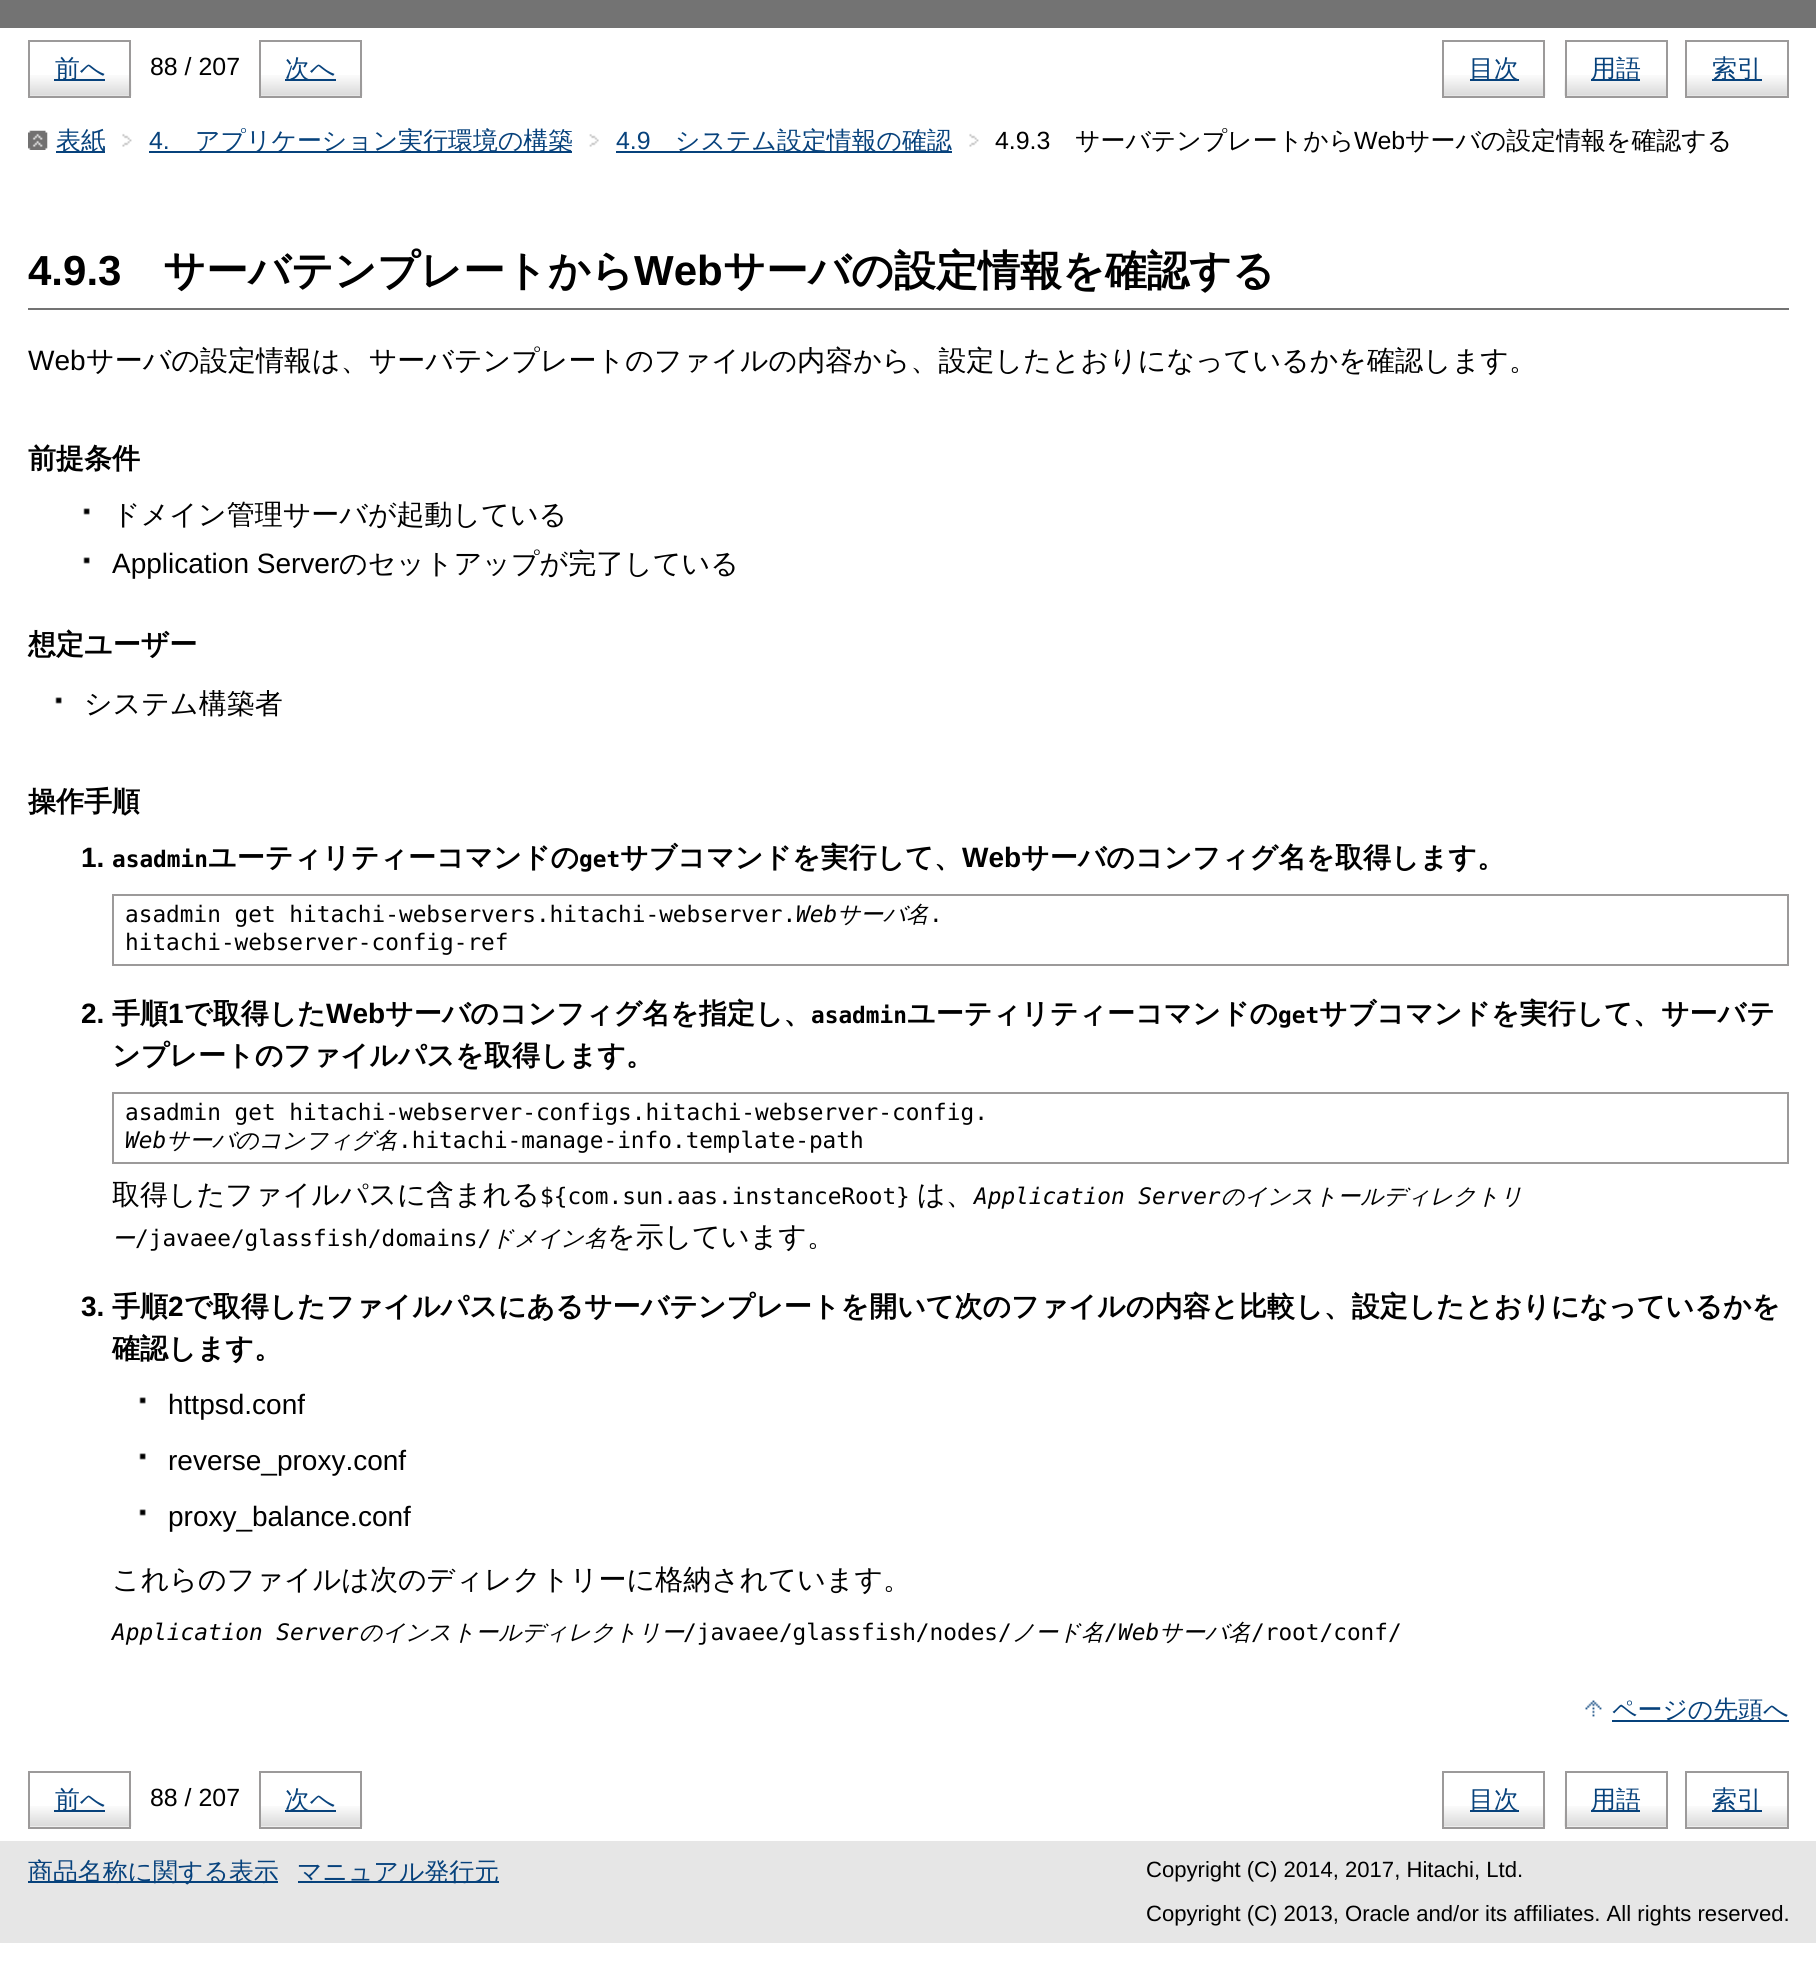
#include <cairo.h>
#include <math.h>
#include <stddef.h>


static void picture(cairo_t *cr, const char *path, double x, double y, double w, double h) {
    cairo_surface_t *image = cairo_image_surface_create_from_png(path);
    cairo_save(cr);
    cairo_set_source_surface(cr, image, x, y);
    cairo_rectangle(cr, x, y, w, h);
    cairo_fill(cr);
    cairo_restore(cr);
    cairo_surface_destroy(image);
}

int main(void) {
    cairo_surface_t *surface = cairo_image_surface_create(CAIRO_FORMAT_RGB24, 1816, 1968);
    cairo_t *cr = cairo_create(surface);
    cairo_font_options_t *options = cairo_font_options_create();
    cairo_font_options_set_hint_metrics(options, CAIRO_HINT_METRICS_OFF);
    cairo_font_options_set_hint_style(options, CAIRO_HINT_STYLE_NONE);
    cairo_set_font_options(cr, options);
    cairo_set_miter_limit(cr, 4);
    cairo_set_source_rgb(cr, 1, 1, 1);
    cairo_paint(cr);
    cairo_set_source_rgb(cr, 0.451, 0.451, 0.451);
    cairo_rectangle(cr, 0, 0, 1816, 28);
    cairo_fill(cr);
    picture(cr, "img1.png", 30, 75, 102, 21);
    cairo_rectangle(cr, 29, 41, 101, 56);
    cairo_set_source_rgb(cr, 0.612, 0.604, 0.604);
    cairo_stroke(cr);
    cairo_set_source_rgb(cr, 0.031, 0.259, 0.486);
    cairo_rectangle(cr, 54, 79, 51, 2);
    cairo_fill(cr);
    cairo_select_font_face(cr, "WenQuanYi Zen Hei Medium", CAIRO_FONT_SLANT_NORMAL, CAIRO_FONT_WEIGHT_NORMAL);
    cairo_set_font_size(cr, 24.9);
    cairo_move_to(cr, 55, 77);
    cairo_show_text(cr, "前へ");
    cairo_select_font_face(cr, "Liberation Sans", CAIRO_FONT_SLANT_NORMAL, CAIRO_FONT_WEIGHT_NORMAL);
    cairo_set_source_rgb(cr, 0, 0, 0);
    cairo_move_to(cr, 150, 75);
    cairo_show_text(cr, "88 / 207");
    picture(cr, "img1.png", 261, 75, 102, 21);
    cairo_rectangle(cr, 260, 41, 101, 56);
    cairo_set_source_rgb(cr, 0.612, 0.604, 0.604);
    cairo_stroke(cr);
    cairo_set_source_rgb(cr, 0.031, 0.259, 0.486);
    cairo_rectangle(cr, 285, 79, 51, 2);
    cairo_fill(cr);
    cairo_select_font_face(cr, "WenQuanYi Zen Hei Medium", CAIRO_FONT_SLANT_NORMAL, CAIRO_FONT_WEIGHT_NORMAL);
    cairo_move_to(cr, 285, 77);
    cairo_show_text(cr, "次へ");
    picture(cr, "img1.png", 1444, 75, 102, 21);
    cairo_rectangle(cr, 1443, 41, 101, 56);
    cairo_set_source_rgb(cr, 0.612, 0.604, 0.604);
    cairo_stroke(cr);
    cairo_set_source_rgb(cr, 0.031, 0.259, 0.486);
    cairo_rectangle(cr, 1470, 79, 49, 2);
    cairo_fill(cr);
    cairo_move_to(cr, 1469, 77);
    cairo_show_text(cr, "目次");
    picture(cr, "img2.png", 1564, 75, 102, 21);
    cairo_rectangle(cr, 1566, 41, 101, 56);
    cairo_set_source_rgb(cr, 0.612, 0.604, 0.604);
    cairo_stroke(cr);
    cairo_set_source_rgb(cr, 0.031, 0.259, 0.486);
    cairo_rectangle(cr, 1591, 79, 49, 2);
    cairo_fill(cr);
    cairo_move_to(cr, 1591, 77);
    cairo_show_text(cr, "用語");
    picture(cr, "img3.png", 1687, 75, 100, 21);
    cairo_rectangle(cr, 1686, 41, 102, 56);
    cairo_set_source_rgb(cr, 0.612, 0.604, 0.604);
    cairo_stroke(cr);
    cairo_set_source_rgb(cr, 0.031, 0.259, 0.486);
    cairo_rectangle(cr, 1712, 79, 50, 2);
    cairo_fill(cr);
    cairo_move_to(cr, 1712, 77);
    cairo_show_text(cr, "索引");
    picture(cr, "img4.png", 28, 130, 20, 20);
    cairo_rectangle(cr, 56, 151, 49, 2);
    cairo_fill(cr);
    cairo_move_to(cr, 56, 149);
    cairo_show_text(cr, "表紙");
    picture(cr, "img5.png", 122, 133, 10, 14);
    cairo_select_font_face(cr, "Liberation Sans", CAIRO_FONT_SLANT_NORMAL, CAIRO_FONT_WEIGHT_NORMAL);
    cairo_move_to(cr, 149, 149);
    cairo_show_text(cr, "4.");
    cairo_rectangle(cr, 149, 151, 423, 2);
    cairo_fill(cr);
    cairo_select_font_face(cr, "WenQuanYi Zen Hei Medium", CAIRO_FONT_SLANT_NORMAL, CAIRO_FONT_WEIGHT_NORMAL);
    cairo_move_to(cr, 195, 149);
    cairo_show_text(cr, "アプリケーション実行環境の構築");
    picture(cr, "img6.png", 589, 134, 10, 13);
    cairo_select_font_face(cr, "Liberation Sans", CAIRO_FONT_SLANT_NORMAL, CAIRO_FONT_WEIGHT_NORMAL);
    cairo_move_to(cr, 616, 149);
    cairo_show_text(cr, "4.9");
    cairo_rectangle(cr, 616, 151, 336, 2);
    cairo_fill(cr);
    cairo_select_font_face(cr, "WenQuanYi Zen Hei Medium", CAIRO_FONT_SLANT_NORMAL, CAIRO_FONT_WEIGHT_NORMAL);
    cairo_move_to(cr, 675, 149);
    cairo_show_text(cr, "システム設定情報の確認");
    picture(cr, "img5.png", 969, 133, 10, 14);
    cairo_select_font_face(cr, "Liberation Sans", CAIRO_FONT_SLANT_NORMAL, CAIRO_FONT_WEIGHT_NORMAL);
    cairo_set_source_rgb(cr, 0, 0, 0);
    cairo_move_to(cr, 995, 149);
    cairo_show_text(cr, "4.9.3");
    cairo_select_font_face(cr, "WenQuanYi Zen Hei Medium", CAIRO_FONT_SLANT_NORMAL, CAIRO_FONT_WEIGHT_NORMAL);
    cairo_move_to(cr, 1075, 149);
    cairo_show_text(cr, "サーバテンプレートから");
    cairo_select_font_face(cr, "Liberation Sans", CAIRO_FONT_SLANT_NORMAL, CAIRO_FONT_WEIGHT_NORMAL);
    cairo_move_to(cr, 1354, 149);
    cairo_show_text(cr, "Web");
    cairo_select_font_face(cr, "WenQuanYi Zen Hei Medium", CAIRO_FONT_SLANT_NORMAL, CAIRO_FONT_WEIGHT_NORMAL);
    cairo_move_to(cr, 1405, 149);
    cairo_show_text(cr, "サーバの設定情報を確認する");
    cairo_set_source_rgb(cr, 0.451, 0.451, 0.451);
    cairo_rectangle(cr, 28, 308, 1761, 2);
    cairo_fill(cr);
    cairo_select_font_face(cr, "Liberation Sans", CAIRO_FONT_SLANT_NORMAL, CAIRO_FONT_WEIGHT_BOLD);
    cairo_set_font_size(cr, 42);
    cairo_set_source_rgb(cr, 0, 0, 0);
    cairo_move_to(cr, 28, 285);
    cairo_show_text(cr, "4.9.3");
    cairo_select_font_face(cr, "WenQuanYi Zen Hei", CAIRO_FONT_SLANT_NORMAL, CAIRO_FONT_WEIGHT_BOLD);
    cairo_move_to(cr, 163, 285);
    cairo_show_text(cr, "サーバテンプレートから");
    cairo_select_font_face(cr, "Liberation Sans", CAIRO_FONT_SLANT_NORMAL, CAIRO_FONT_WEIGHT_BOLD);
    cairo_move_to(cr, 634, 285);
    cairo_show_text(cr, "Web");
    cairo_select_font_face(cr, "WenQuanYi Zen Hei", CAIRO_FONT_SLANT_NORMAL, CAIRO_FONT_WEIGHT_BOLD);
    cairo_move_to(cr, 723, 285);
    cairo_show_text(cr, "サーバの設定情報を確認する");
    cairo_select_font_face(cr, "Liberation Sans", CAIRO_FONT_SLANT_NORMAL, CAIRO_FONT_WEIGHT_NORMAL);
    cairo_set_font_size(cr, 28);
    cairo_move_to(cr, 28, 370);
    cairo_show_text(cr, "Web");
    cairo_select_font_face(cr, "WenQuanYi Zen Hei Medium", CAIRO_FONT_SLANT_NORMAL, CAIRO_FONT_WEIGHT_NORMAL);
    cairo_move_to(cr, 86, 370);
    cairo_show_text(cr, "サーバの設定情報は、サーバテンプレートのファイルの内容から、設定したとおりになっているかを確認します。");
    cairo_select_font_face(cr, "WenQuanYi Zen Hei", CAIRO_FONT_SLANT_NORMAL, CAIRO_FONT_WEIGHT_BOLD);
    cairo_move_to(cr, 28, 468);
    cairo_show_text(cr, "前提条件");
    picture(cr, "img7.png", 83, 508, 7, 7);
    cairo_select_font_face(cr, "WenQuanYi Zen Hei Medium", CAIRO_FONT_SLANT_NORMAL, CAIRO_FONT_WEIGHT_NORMAL);
    cairo_move_to(cr, 112, 524);
    cairo_show_text(cr, "ドメイン管理サーバが起動している");
    picture(cr, "img7.png", 83, 557, 7, 7);
    cairo_select_font_face(cr, "Liberation Sans", CAIRO_FONT_SLANT_NORMAL, CAIRO_FONT_WEIGHT_NORMAL);
    cairo_move_to(cr, 112, 573);
    cairo_show_text(cr, "Application Server");
    cairo_select_font_face(cr, "WenQuanYi Zen Hei Medium", CAIRO_FONT_SLANT_NORMAL, CAIRO_FONT_WEIGHT_NORMAL);
    cairo_move_to(cr, 339, 573);
    cairo_show_text(cr, "のセットアップが完了している");
    cairo_select_font_face(cr, "WenQuanYi Zen Hei", CAIRO_FONT_SLANT_NORMAL, CAIRO_FONT_WEIGHT_BOLD);
    cairo_move_to(cr, 28, 654);
    cairo_show_text(cr, "想定ユーザー");
    picture(cr, "img7.png", 55, 697, 7, 7);
    cairo_select_font_face(cr, "WenQuanYi Zen Hei Medium", CAIRO_FONT_SLANT_NORMAL, CAIRO_FONT_WEIGHT_NORMAL);
    cairo_move_to(cr, 84, 713);
    cairo_show_text(cr, "システム構築者");
    cairo_select_font_face(cr, "WenQuanYi Zen Hei", CAIRO_FONT_SLANT_NORMAL, CAIRO_FONT_WEIGHT_BOLD);
    cairo_move_to(cr, 28, 811);
    cairo_show_text(cr, "操作手順");
    cairo_select_font_face(cr, "Liberation Sans", CAIRO_FONT_SLANT_NORMAL, CAIRO_FONT_WEIGHT_BOLD);
    cairo_move_to(cr, 81, 867);
    cairo_show_text(cr, "1.");
    cairo_select_font_face(cr, "DejaVu Sans Mono", CAIRO_FONT_SLANT_NORMAL, CAIRO_FONT_WEIGHT_BOLD);
    cairo_set_font_size(cr, 22.75);
    cairo_move_to(cr, 112, 867);
    cairo_show_text(cr, "asadmin");
    cairo_select_font_face(cr, "WenQuanYi Zen Hei", CAIRO_FONT_SLANT_NORMAL, CAIRO_FONT_WEIGHT_BOLD);
    cairo_set_font_size(cr, 28);
    cairo_move_to(cr, 208, 867);
    cairo_show_text(cr, "ユーティリティーコマンドの");
    cairo_select_font_face(cr, "DejaVu Sans Mono", CAIRO_FONT_SLANT_NORMAL, CAIRO_FONT_WEIGHT_BOLD);
    cairo_set_font_size(cr, 22.75);
    cairo_move_to(cr, 579, 867);
    cairo_show_text(cr, "get");
    cairo_select_font_face(cr, "WenQuanYi Zen Hei", CAIRO_FONT_SLANT_NORMAL, CAIRO_FONT_WEIGHT_BOLD);
    cairo_set_font_size(cr, 28);
    cairo_move_to(cr, 620, 867);
    cairo_show_text(cr, "サブコマンドを実行して、");
    cairo_select_font_face(cr, "Liberation Sans", CAIRO_FONT_SLANT_NORMAL, CAIRO_FONT_WEIGHT_BOLD);
    cairo_move_to(cr, 962, 867);
    cairo_show_text(cr, "Web");
    cairo_select_font_face(cr, "WenQuanYi Zen Hei", CAIRO_FONT_SLANT_NORMAL, CAIRO_FONT_WEIGHT_BOLD);
    cairo_move_to(cr, 1021, 867);
    cairo_show_text(cr, "サーバのコンフィグ名を取得します。");
    cairo_rectangle(cr, 113, 895, 1675, 70);
    cairo_set_source_rgb(cr, 0.612, 0.604, 0.604);
    cairo_stroke(cr);
    cairo_select_font_face(cr, "DejaVu Sans Mono", CAIRO_FONT_SLANT_NORMAL, CAIRO_FONT_WEIGHT_NORMAL);
    cairo_set_font_size(cr, 22.75);
    cairo_set_source_rgb(cr, 0, 0, 0);
    cairo_move_to(cr, 125, 922);
    cairo_show_text(cr, "asadmin get hitachi-webservers.hitachi-webserver.");
    cairo_select_font_face(cr, "DejaVu Sans Mono", CAIRO_FONT_SLANT_ITALIC, CAIRO_FONT_WEIGHT_NORMAL);
    cairo_move_to(cr, 796, 922);
    cairo_show_text(cr, "Web");
    cairo_select_font_face(cr, "WenQuanYi Zen Hei Medium", CAIRO_FONT_SLANT_ITALIC, CAIRO_FONT_WEIGHT_NORMAL);
    cairo_move_to(cr, 837, 922);
    cairo_show_text(cr, "サーバ名");
    cairo_select_font_face(cr, "DejaVu Sans Mono", CAIRO_FONT_SLANT_NORMAL, CAIRO_FONT_WEIGHT_NORMAL);
    cairo_move_to(cr, 929, 922);
    cairo_show_text(cr, ".");
    cairo_move_to(cr, 125, 950);
    cairo_show_text(cr, "hitachi-webserver-config-ref");
    cairo_select_font_face(cr, "Liberation Sans", CAIRO_FONT_SLANT_NORMAL, CAIRO_FONT_WEIGHT_BOLD);
    cairo_set_font_size(cr, 28);
    cairo_move_to(cr, 81, 1023);
    cairo_show_text(cr, "2.");
    cairo_select_font_face(cr, "WenQuanYi Zen Hei", CAIRO_FONT_SLANT_NORMAL, CAIRO_FONT_WEIGHT_BOLD);
    cairo_move_to(cr, 112, 1023);
    cairo_show_text(cr, "手順");
    cairo_select_font_face(cr, "Liberation Sans", CAIRO_FONT_SLANT_NORMAL, CAIRO_FONT_WEIGHT_BOLD);
    cairo_move_to(cr, 168, 1023);
    cairo_show_text(cr, "1");
    cairo_select_font_face(cr, "WenQuanYi Zen Hei", CAIRO_FONT_SLANT_NORMAL, CAIRO_FONT_WEIGHT_BOLD);
    cairo_move_to(cr, 184, 1023);
    cairo_show_text(cr, "で取得した");
    cairo_select_font_face(cr, "Liberation Sans", CAIRO_FONT_SLANT_NORMAL, CAIRO_FONT_WEIGHT_BOLD);
    cairo_move_to(cr, 326, 1023);
    cairo_show_text(cr, "Web");
    cairo_select_font_face(cr, "WenQuanYi Zen Hei", CAIRO_FONT_SLANT_NORMAL, CAIRO_FONT_WEIGHT_BOLD);
    cairo_move_to(cr, 385, 1023);
    cairo_show_text(cr, "サーバのコンフィグ名を指定し、");
    cairo_select_font_face(cr, "DejaVu Sans Mono", CAIRO_FONT_SLANT_NORMAL, CAIRO_FONT_WEIGHT_BOLD);
    cairo_set_font_size(cr, 22.75);
    cairo_move_to(cr, 811, 1023);
    cairo_show_text(cr, "asadmin");
    cairo_select_font_face(cr, "WenQuanYi Zen Hei", CAIRO_FONT_SLANT_NORMAL, CAIRO_FONT_WEIGHT_BOLD);
    cairo_set_font_size(cr, 28);
    cairo_move_to(cr, 907, 1023);
    cairo_show_text(cr, "ユーティリティーコマンドの");
    cairo_select_font_face(cr, "DejaVu Sans Mono", CAIRO_FONT_SLANT_NORMAL, CAIRO_FONT_WEIGHT_BOLD);
    cairo_set_font_size(cr, 22.75);
    cairo_move_to(cr, 1278, 1023);
    cairo_show_text(cr, "get");
    cairo_select_font_face(cr, "WenQuanYi Zen Hei", CAIRO_FONT_SLANT_NORMAL, CAIRO_FONT_WEIGHT_BOLD);
    cairo_set_font_size(cr, 28);
    cairo_move_to(cr, 1319, 1023);
    cairo_show_text(cr, "サブコマンドを実行して、サーバテ");
    cairo_move_to(cr, 112, 1065);
    cairo_show_text(cr, "ンプレートのファイルパスを取得します。");
    cairo_rectangle(cr, 113, 1093, 1675, 70);
    cairo_set_source_rgb(cr, 0.612, 0.604, 0.604);
    cairo_stroke(cr);
    cairo_select_font_face(cr, "DejaVu Sans Mono", CAIRO_FONT_SLANT_NORMAL, CAIRO_FONT_WEIGHT_NORMAL);
    cairo_set_font_size(cr, 22.75);
    cairo_set_source_rgb(cr, 0, 0, 0);
    cairo_move_to(cr, 125, 1120);
    cairo_show_text(cr, "asadmin get hitachi-webserver-configs.hitachi-webserver-config.");
    cairo_select_font_face(cr, "DejaVu Sans Mono", CAIRO_FONT_SLANT_ITALIC, CAIRO_FONT_WEIGHT_NORMAL);
    cairo_move_to(cr, 125, 1148);
    cairo_show_text(cr, "Web");
    cairo_select_font_face(cr, "WenQuanYi Zen Hei Medium", CAIRO_FONT_SLANT_ITALIC, CAIRO_FONT_WEIGHT_NORMAL);
    cairo_move_to(cr, 166, 1148);
    cairo_show_text(cr, "サーバのコンフィグ名");
    cairo_select_font_face(cr, "DejaVu Sans Mono", CAIRO_FONT_SLANT_NORMAL, CAIRO_FONT_WEIGHT_NORMAL);
    cairo_move_to(cr, 398, 1148);
    cairo_show_text(cr, ".hitachi-manage-info.template-path");
    cairo_select_font_face(cr, "WenQuanYi Zen Hei Medium", CAIRO_FONT_SLANT_NORMAL, CAIRO_FONT_WEIGHT_NORMAL);
    cairo_set_font_size(cr, 28);
    cairo_move_to(cr, 112, 1204);
    cairo_show_text(cr, "取得したファイルパスに含まれる");
    cairo_select_font_face(cr, "DejaVu Sans Mono", CAIRO_FONT_SLANT_NORMAL, CAIRO_FONT_WEIGHT_NORMAL);
    cairo_set_font_size(cr, 22.75);
    cairo_move_to(cr, 540, 1204);
    cairo_show_text(cr, "${com.sun.aas.instanceRoot}");
    cairo_select_font_face(cr, "WenQuanYi Zen Hei Medium", CAIRO_FONT_SLANT_NORMAL, CAIRO_FONT_WEIGHT_NORMAL);
    cairo_set_font_size(cr, 28);
    cairo_move_to(cr, 917, 1204);
    cairo_show_text(cr, "は、");
    cairo_select_font_face(cr, "DejaVu Sans Mono", CAIRO_FONT_SLANT_ITALIC, CAIRO_FONT_WEIGHT_NORMAL);
    cairo_set_font_size(cr, 22.75);
    cairo_move_to(cr, 974, 1204);
    cairo_show_text(cr, "Application Server");
    cairo_select_font_face(cr, "WenQuanYi Zen Hei Medium", CAIRO_FONT_SLANT_ITALIC, CAIRO_FONT_WEIGHT_NORMAL);
    cairo_move_to(cr, 1221, 1204);
    cairo_show_text(cr, "のインストールディレクトリ");
    cairo_move_to(cr, 112, 1246);
    cairo_show_text(cr, "ー");
    cairo_select_font_face(cr, "DejaVu Sans Mono", CAIRO_FONT_SLANT_NORMAL, CAIRO_FONT_WEIGHT_NORMAL);
    cairo_move_to(cr, 135, 1246);
    cairo_show_text(cr, "/javaee/glassfish/domains/");
    cairo_select_font_face(cr, "WenQuanYi Zen Hei Medium", CAIRO_FONT_SLANT_ITALIC, CAIRO_FONT_WEIGHT_NORMAL);
    cairo_move_to(cr, 491, 1246);
    cairo_show_text(cr, "ドメイン名");
    cairo_select_font_face(cr, "WenQuanYi Zen Hei Medium", CAIRO_FONT_SLANT_NORMAL, CAIRO_FONT_WEIGHT_NORMAL);
    cairo_set_font_size(cr, 28);
    cairo_move_to(cr, 607, 1246);
    cairo_show_text(cr, "を示しています。");
    cairo_select_font_face(cr, "Liberation Sans", CAIRO_FONT_SLANT_NORMAL, CAIRO_FONT_WEIGHT_BOLD);
    cairo_move_to(cr, 81, 1316);
    cairo_show_text(cr, "3.");
    cairo_select_font_face(cr, "WenQuanYi Zen Hei", CAIRO_FONT_SLANT_NORMAL, CAIRO_FONT_WEIGHT_BOLD);
    cairo_move_to(cr, 112, 1316);
    cairo_show_text(cr, "手順");
    cairo_select_font_face(cr, "Liberation Sans", CAIRO_FONT_SLANT_NORMAL, CAIRO_FONT_WEIGHT_BOLD);
    cairo_move_to(cr, 168, 1316);
    cairo_show_text(cr, "2");
    cairo_select_font_face(cr, "WenQuanYi Zen Hei", CAIRO_FONT_SLANT_NORMAL, CAIRO_FONT_WEIGHT_BOLD);
    cairo_move_to(cr, 184, 1316);
    cairo_show_text(cr, "で取得したファイルパスにあるサーバテンプレートを開いて次のファイルの内容と比較し、設定したとおりになっているかを");
    cairo_move_to(cr, 112, 1358);
    cairo_show_text(cr, "確認します。");
    picture(cr, "img7.png", 139, 1397, 7, 7);
    cairo_select_font_face(cr, "Liberation Sans", CAIRO_FONT_SLANT_NORMAL, CAIRO_FONT_WEIGHT_NORMAL);
    cairo_move_to(cr, 168, 1414);
    cairo_show_text(cr, "httpsd.conf");
    picture(cr, "img7.png", 139, 1453, 7, 7);
    cairo_move_to(cr, 168, 1470);
    cairo_show_text(cr, "reverse_proxy.conf");
    picture(cr, "img7.png", 139, 1509, 7, 7);
    cairo_move_to(cr, 168, 1526);
    cairo_show_text(cr, "proxy_balance.conf");
    cairo_select_font_face(cr, "WenQuanYi Zen Hei Medium", CAIRO_FONT_SLANT_NORMAL, CAIRO_FONT_WEIGHT_NORMAL);
    cairo_move_to(cr, 112, 1589);
    cairo_show_text(cr, "これらのファイルは次のディレクトリーに格納されています。");
    cairo_select_font_face(cr, "DejaVu Sans Mono", CAIRO_FONT_SLANT_ITALIC, CAIRO_FONT_WEIGHT_NORMAL);
    cairo_set_font_size(cr, 22.75);
    cairo_move_to(cr, 112, 1640);
    cairo_show_text(cr, "Application Server");
    cairo_select_font_face(cr, "WenQuanYi Zen Hei Medium", CAIRO_FONT_SLANT_ITALIC, CAIRO_FONT_WEIGHT_NORMAL);
    cairo_move_to(cr, 359, 1640);
    cairo_show_text(cr, "のインストールディレクトリー");
    cairo_select_font_face(cr, "DejaVu Sans Mono", CAIRO_FONT_SLANT_NORMAL, CAIRO_FONT_WEIGHT_NORMAL);
    cairo_move_to(cr, 683, 1640);
    cairo_show_text(cr, "/javaee/glassfish/nodes/");
    cairo_select_font_face(cr, "WenQuanYi Zen Hei Medium", CAIRO_FONT_SLANT_ITALIC, CAIRO_FONT_WEIGHT_NORMAL);
    cairo_move_to(cr, 1012, 1640);
    cairo_show_text(cr, "ノード名");
    cairo_select_font_face(cr, "DejaVu Sans Mono", CAIRO_FONT_SLANT_NORMAL, CAIRO_FONT_WEIGHT_NORMAL);
    cairo_move_to(cr, 1104, 1640);
    cairo_show_text(cr, "/");
    cairo_select_font_face(cr, "DejaVu Sans Mono", CAIRO_FONT_SLANT_ITALIC, CAIRO_FONT_WEIGHT_NORMAL);
    cairo_move_to(cr, 1118, 1640);
    cairo_show_text(cr, "Web");
    cairo_select_font_face(cr, "WenQuanYi Zen Hei Medium", CAIRO_FONT_SLANT_ITALIC, CAIRO_FONT_WEIGHT_NORMAL);
    cairo_move_to(cr, 1159, 1640);
    cairo_show_text(cr, "サーバ名");
    cairo_select_font_face(cr, "DejaVu Sans Mono", CAIRO_FONT_SLANT_NORMAL, CAIRO_FONT_WEIGHT_NORMAL);
    cairo_move_to(cr, 1251, 1640);
    cairo_show_text(cr, "/root/conf/");
    picture(cr, "img8.png", 1585, 1700, 17, 17);
    cairo_set_source_rgb(cr, 0.031, 0.259, 0.486);
    cairo_rectangle(cr, 1612, 1720, 177, 2);
    cairo_fill(cr);
    cairo_select_font_face(cr, "WenQuanYi Zen Hei Medium", CAIRO_FONT_SLANT_NORMAL, CAIRO_FONT_WEIGHT_NORMAL);
    cairo_set_font_size(cr, 24.9);
    cairo_move_to(cr, 1612, 1718);
    cairo_show_text(cr, "ページの先頭へ");
    picture(cr, "img9.png", 30, 1806, 102, 21);
    cairo_rectangle(cr, 29, 1772, 101, 56);
    cairo_set_source_rgb(cr, 0.612, 0.604, 0.604);
    cairo_stroke(cr);
    cairo_set_source_rgb(cr, 0.031, 0.259, 0.486);
    cairo_rectangle(cr, 54, 1810, 51, 2);
    cairo_fill(cr);
    cairo_move_to(cr, 55, 1808);
    cairo_show_text(cr, "前へ");
    cairo_select_font_face(cr, "Liberation Sans", CAIRO_FONT_SLANT_NORMAL, CAIRO_FONT_WEIGHT_NORMAL);
    cairo_set_source_rgb(cr, 0, 0, 0);
    cairo_move_to(cr, 150, 1806);
    cairo_show_text(cr, "88 / 207");
    picture(cr, "img9.png", 261, 1806, 102, 21);
    cairo_rectangle(cr, 260, 1772, 101, 56);
    cairo_set_source_rgb(cr, 0.612, 0.604, 0.604);
    cairo_stroke(cr);
    cairo_set_source_rgb(cr, 0.031, 0.259, 0.486);
    cairo_rectangle(cr, 285, 1810, 51, 2);
    cairo_fill(cr);
    cairo_select_font_face(cr, "WenQuanYi Zen Hei Medium", CAIRO_FONT_SLANT_NORMAL, CAIRO_FONT_WEIGHT_NORMAL);
    cairo_move_to(cr, 285, 1808);
    cairo_show_text(cr, "次へ");
    picture(cr, "img9.png", 1444, 1806, 102, 21);
    cairo_rectangle(cr, 1443, 1772, 101, 56);
    cairo_set_source_rgb(cr, 0.612, 0.604, 0.604);
    cairo_stroke(cr);
    cairo_set_source_rgb(cr, 0.031, 0.259, 0.486);
    cairo_rectangle(cr, 1470, 1810, 49, 2);
    cairo_fill(cr);
    cairo_move_to(cr, 1469, 1808);
    cairo_show_text(cr, "目次");
    picture(cr, "img10.png", 1564, 1806, 102, 21);
    cairo_rectangle(cr, 1566, 1772, 101, 56);
    cairo_set_source_rgb(cr, 0.612, 0.604, 0.604);
    cairo_stroke(cr);
    cairo_set_source_rgb(cr, 0.031, 0.259, 0.486);
    cairo_rectangle(cr, 1591, 1810, 49, 2);
    cairo_fill(cr);
    cairo_move_to(cr, 1591, 1808);
    cairo_show_text(cr, "用語");
    picture(cr, "img11.png", 1687, 1806, 100, 21);
    cairo_rectangle(cr, 1686, 1772, 102, 56);
    cairo_set_source_rgb(cr, 0.612, 0.604, 0.604);
    cairo_stroke(cr);
    cairo_set_source_rgb(cr, 0.031, 0.259, 0.486);
    cairo_rectangle(cr, 1712, 1810, 50, 2);
    cairo_fill(cr);
    cairo_move_to(cr, 1712, 1808);
    cairo_show_text(cr, "索引");
    cairo_set_source_rgb(cr, 0.902, 0.902, 0.902);
    cairo_rectangle(cr, 0, 1841, 1816, 102);
    cairo_fill(cr);
    cairo_set_source_rgb(cr, 0.031, 0.259, 0.486);
    cairo_rectangle(cr, 28, 1881, 250, 2);
    cairo_fill(cr);
    cairo_move_to(cr, 28, 1880);
    cairo_show_text(cr, "商品名称に関する表示");
    cairo_rectangle(cr, 298, 1881, 201, 2);
    cairo_fill(cr);
    cairo_move_to(cr, 297, 1880);
    cairo_show_text(cr, "マニュアル発行元");
    cairo_select_font_face(cr, "Liberation Sans", CAIRO_FONT_SLANT_NORMAL, CAIRO_FONT_WEIGHT_NORMAL);
    cairo_set_font_size(cr, 22.1);
    cairo_set_source_rgb(cr, 0, 0, 0);
    cairo_move_to(cr, 1146, 1877);
    cairo_show_text(cr, "Copyright (C) 2014, 2017, Hitachi, Ltd.");
    cairo_move_to(cr, 1146, 1921);
    cairo_show_text(cr, "Copyright (C) 2013, Oracle and/or its affiliates. All rights reserved.");
    cairo_surface_write_to_png(surface, "page.png");
    cairo_font_options_destroy(options);
    cairo_destroy(cr);
    cairo_surface_destroy(surface);
    return 0;
}
